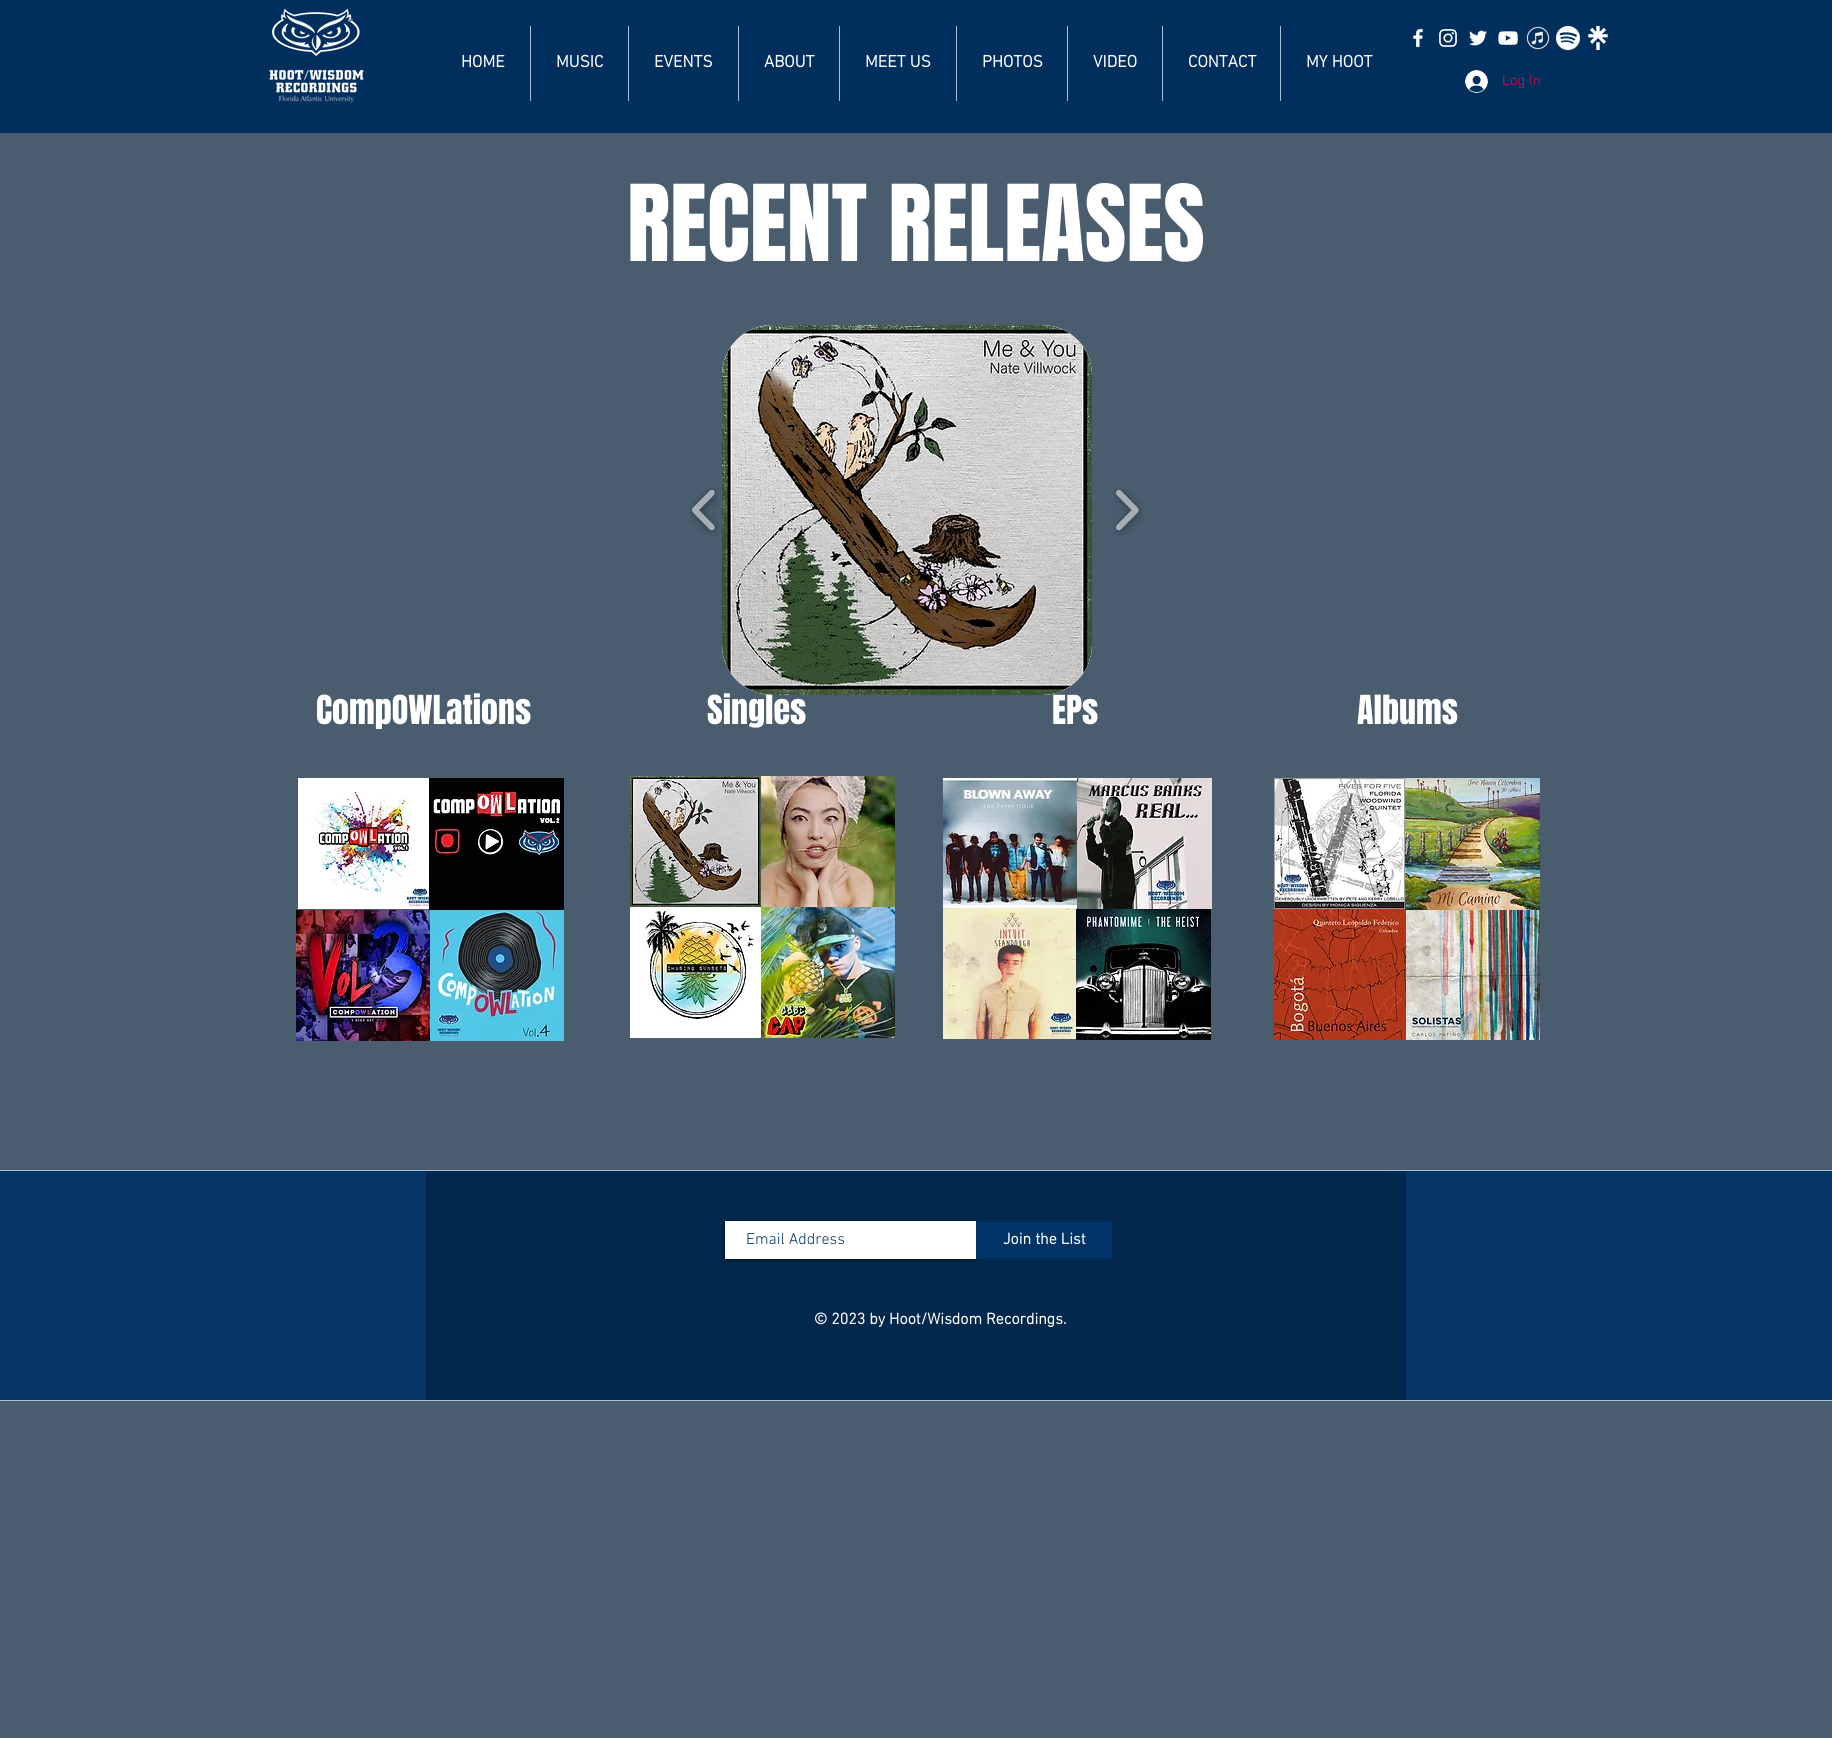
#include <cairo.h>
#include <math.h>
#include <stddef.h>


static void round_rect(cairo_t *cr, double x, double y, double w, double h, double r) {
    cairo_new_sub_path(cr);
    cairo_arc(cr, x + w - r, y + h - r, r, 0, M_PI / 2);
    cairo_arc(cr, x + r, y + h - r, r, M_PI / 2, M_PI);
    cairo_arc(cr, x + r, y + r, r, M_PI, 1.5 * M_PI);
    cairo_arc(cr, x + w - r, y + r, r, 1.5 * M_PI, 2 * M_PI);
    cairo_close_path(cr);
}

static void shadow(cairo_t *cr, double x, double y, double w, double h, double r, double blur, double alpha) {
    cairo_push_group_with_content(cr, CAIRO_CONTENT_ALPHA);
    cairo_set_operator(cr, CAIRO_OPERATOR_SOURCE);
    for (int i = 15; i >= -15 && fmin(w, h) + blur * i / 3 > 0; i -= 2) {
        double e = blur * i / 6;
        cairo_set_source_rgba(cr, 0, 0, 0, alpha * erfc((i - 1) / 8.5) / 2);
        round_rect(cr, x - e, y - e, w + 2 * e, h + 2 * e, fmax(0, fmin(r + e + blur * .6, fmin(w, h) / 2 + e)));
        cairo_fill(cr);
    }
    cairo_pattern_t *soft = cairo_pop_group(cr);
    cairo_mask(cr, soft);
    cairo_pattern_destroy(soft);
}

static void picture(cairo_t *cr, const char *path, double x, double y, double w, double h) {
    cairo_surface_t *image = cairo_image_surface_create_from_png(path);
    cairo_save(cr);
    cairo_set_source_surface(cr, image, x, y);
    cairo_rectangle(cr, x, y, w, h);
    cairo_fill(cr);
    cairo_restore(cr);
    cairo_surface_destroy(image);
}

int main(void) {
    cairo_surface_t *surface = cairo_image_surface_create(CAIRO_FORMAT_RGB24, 1832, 1738);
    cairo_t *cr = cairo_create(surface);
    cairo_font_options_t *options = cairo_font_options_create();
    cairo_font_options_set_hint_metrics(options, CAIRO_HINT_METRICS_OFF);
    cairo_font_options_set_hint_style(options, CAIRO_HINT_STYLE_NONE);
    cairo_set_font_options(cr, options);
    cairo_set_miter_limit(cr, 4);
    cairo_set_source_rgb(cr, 0.29, 0.365, 0.431);
    cairo_paint(cr);
    cairo_set_source_rgb(cr, 0, 0.18, 0.365);
    cairo_rectangle(cr, 0, 0, 1832, 133);
    cairo_fill(cr);
    picture(cr, "img1.png", 269, 8, 95, 96);
    picture(cr, "img2.png", 1413, 28, 10, 20);
    picture(cr, "img3.png", 1439, 29, 18, 18);
    picture(cr, "img4.png", 1469, 30, 18, 16);
    picture(cr, "img5.png", 1498, 31, 20, 14);
    picture(cr, "img6.png", 1526, 26, 24, 24);
    picture(cr, "img7.png", 1556, 26, 24, 24);
    picture(cr, "img8.png", 1588, 26, 20, 24);
    cairo_select_font_face(cr, "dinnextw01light", CAIRO_FONT_SLANT_NORMAL, CAIRO_FONT_WEIGHT_BOLD);
    cairo_set_font_size(cr, 17);
    cairo_set_source_rgb(cr, 1, 1, 1);
    cairo_move_to(cr, 461, 67);
    cairo_show_text(cr, "HOME");
    cairo_set_source_rgb(cr, 0.639, 0.745, 0.851);
    cairo_rectangle(cr, 530, 26, 1, 75);
    cairo_fill(cr);
    cairo_set_source_rgb(cr, 1, 1, 1);
    cairo_move_to(cr, 556, 67);
    cairo_show_text(cr, "MUSIC");
    cairo_set_source_rgb(cr, 0.639, 0.745, 0.851);
    cairo_rectangle(cr, 628, 26, 1, 75);
    cairo_fill(cr);
    cairo_set_source_rgb(cr, 1, 1, 1);
    cairo_move_to(cr, 654, 67);
    cairo_show_text(cr, "EVENTS");
    cairo_set_source_rgb(cr, 0.639, 0.745, 0.851);
    cairo_rectangle(cr, 738, 26, 1, 75);
    cairo_fill(cr);
    cairo_set_source_rgb(cr, 1, 1, 1);
    cairo_move_to(cr, 764, 67);
    cairo_show_text(cr, "ABOUT");
    cairo_set_source_rgb(cr, 0.639, 0.745, 0.851);
    cairo_rectangle(cr, 839, 26, 1, 75);
    cairo_fill(cr);
    cairo_set_source_rgb(cr, 1, 1, 1);
    cairo_move_to(cr, 865, 67);
    cairo_show_text(cr, "MEET US");
    cairo_set_source_rgb(cr, 0.639, 0.745, 0.851);
    cairo_rectangle(cr, 956, 26, 1, 75);
    cairo_fill(cr);
    cairo_set_source_rgb(cr, 1, 1, 1);
    cairo_move_to(cr, 982, 67);
    cairo_show_text(cr, "PHOTOS");
    cairo_set_source_rgb(cr, 0.639, 0.745, 0.851);
    cairo_rectangle(cr, 1067, 26, 1, 75);
    cairo_fill(cr);
    cairo_set_source_rgb(cr, 1, 1, 1);
    cairo_move_to(cr, 1093, 67);
    cairo_show_text(cr, "VIDEO");
    cairo_set_source_rgb(cr, 0.639, 0.745, 0.851);
    cairo_rectangle(cr, 1162, 26, 1, 75);
    cairo_fill(cr);
    cairo_set_source_rgb(cr, 1, 1, 1);
    cairo_move_to(cr, 1188, 67);
    cairo_show_text(cr, "CONTACT");
    cairo_set_source_rgb(cr, 0.639, 0.745, 0.851);
    cairo_rectangle(cr, 1280, 26, 1, 75);
    cairo_fill(cr);
    cairo_set_source_rgb(cr, 1, 1, 1);
    cairo_move_to(cr, 1306, 67);
    cairo_show_text(cr, "MY HOOT");
    picture(cr, "img9.png", 1465, 70, 23, 23);
    cairo_select_font_face(cr, "dinnextw01light Light", CAIRO_FONT_SLANT_NORMAL, CAIRO_FONT_WEIGHT_NORMAL);
    cairo_set_font_size(cr, 15);
    cairo_set_source_rgb(cr, 0.827, 0.067, 0.271);
    cairo_move_to(cr, 1502, 85);
    cairo_show_text(cr, "Log In");
    cairo_select_font_face(cr, "Anton", CAIRO_FONT_SLANT_NORMAL, CAIRO_FONT_WEIGHT_NORMAL);
    cairo_set_font_size(cr, 90);
    cairo_set_source_rgb(cr, 1, 1, 1);
    cairo_move_to(cr, 627, 261);
    cairo_show_text(cr, "RECENT RELEASES");
    picture(cr, "img10.png", 689, 488, 30, 48);
    round_rect(cr, 722, 325, 370, 370, 50);
    cairo_fill(cr);
    picture(cr, "img11.png", 722, 325, 370, 370);
    picture(cr, "img12.png", 1113, 488, 31, 48);
    cairo_set_font_size(cr, 34);
    cairo_move_to(cr, 316, 724);
    cairo_show_text(cr, "CompOWLations");
    cairo_move_to(cr, 707, 724);
    cairo_show_text(cr, "Singles");
    cairo_move_to(cr, 1052, 724);
    cairo_show_text(cr, "EPs");
    cairo_move_to(cr, 1357, 724);
    cairo_show_text(cr, "Albums");
    picture(cr, "img13.png", 298, 778, 131, 131);
    picture(cr, "img14.png", 429, 778, 135, 132);
    picture(cr, "img15.png", 630, 776, 131, 131);
    picture(cr, "img16.png", 761, 776, 134, 131);
    picture(cr, "img17.png", 943, 778, 134, 130);
    picture(cr, "img18.png", 1077, 778, 135, 131);
    picture(cr, "img19.png", 943, 908, 134, 131);
    picture(cr, "img20.png", 1076, 909, 135, 131);
    picture(cr, "img21.png", 1274, 778, 131, 131);
    picture(cr, "img23.png", 1274, 909, 132, 131);
    picture(cr, "img22.png", 1405, 778, 135, 132);
    picture(cr, "img24.png", 1406, 910, 134, 130);
    picture(cr, "img25.png", 296, 910, 134, 131);
    picture(cr, "img26.png", 430, 910, 134, 131);
    picture(cr, "img27.png", 630, 907, 131, 131);
    picture(cr, "img28.png", 761, 907, 134, 131);
    cairo_set_source_rgb(cr, 0.024, 0.212, 0.404);
    cairo_rectangle(cr, 0, 1171, 1832, 229);
    cairo_fill(cr);
    cairo_set_source_rgb(cr, 0.639, 0.745, 0.851);
    cairo_rectangle(cr, 0, 1170, 1832, 1);
    cairo_fill(cr);
    cairo_rectangle(cr, 0, 1400, 1832, 1);
    cairo_fill(cr);
    cairo_set_source_rgb(cr, 0.012, 0.157, 0.302);
    cairo_rectangle(cr, 426, 1171, 980, 229);
    cairo_fill(cr);
    cairo_set_source_rgb(cr, 0, 0, 0);
    shadow(cr, 725, 1222, 251, 38, 0, 2, 0.6);
    cairo_set_source_rgb(cr, 1, 1, 1);
    cairo_rectangle(cr, 725, 1221, 251, 38);
    cairo_fill(cr);
    cairo_select_font_face(cr, "dinnextw01light Light", CAIRO_FONT_SLANT_NORMAL, CAIRO_FONT_WEIGHT_NORMAL);
    cairo_set_font_size(cr, 16);
    cairo_set_source_rgb(cr, 0, 0.2, 0.4);
    cairo_move_to(cr, 746, 1244);
    cairo_show_text(cr, "Email Address");
    cairo_rectangle(cr, 976, 1221, 136, 38);
    cairo_fill(cr);
    cairo_select_font_face(cr, "dinnextw01light", CAIRO_FONT_SLANT_NORMAL, CAIRO_FONT_WEIGHT_BOLD);
    cairo_set_source_rgb(cr, 1, 1, 1);
    cairo_move_to(cr, 1003, 1244);
    cairo_show_text(cr, "Join the List");
    cairo_move_to(cr, 814, 1324);
    cairo_show_text(cr, "© 2023 by Hoot/Wisdom Recordings.");
    cairo_surface_write_to_png(surface, "page.png");
    cairo_font_options_destroy(options);
    cairo_destroy(cr);
    cairo_surface_destroy(surface);
    return 0;
}
